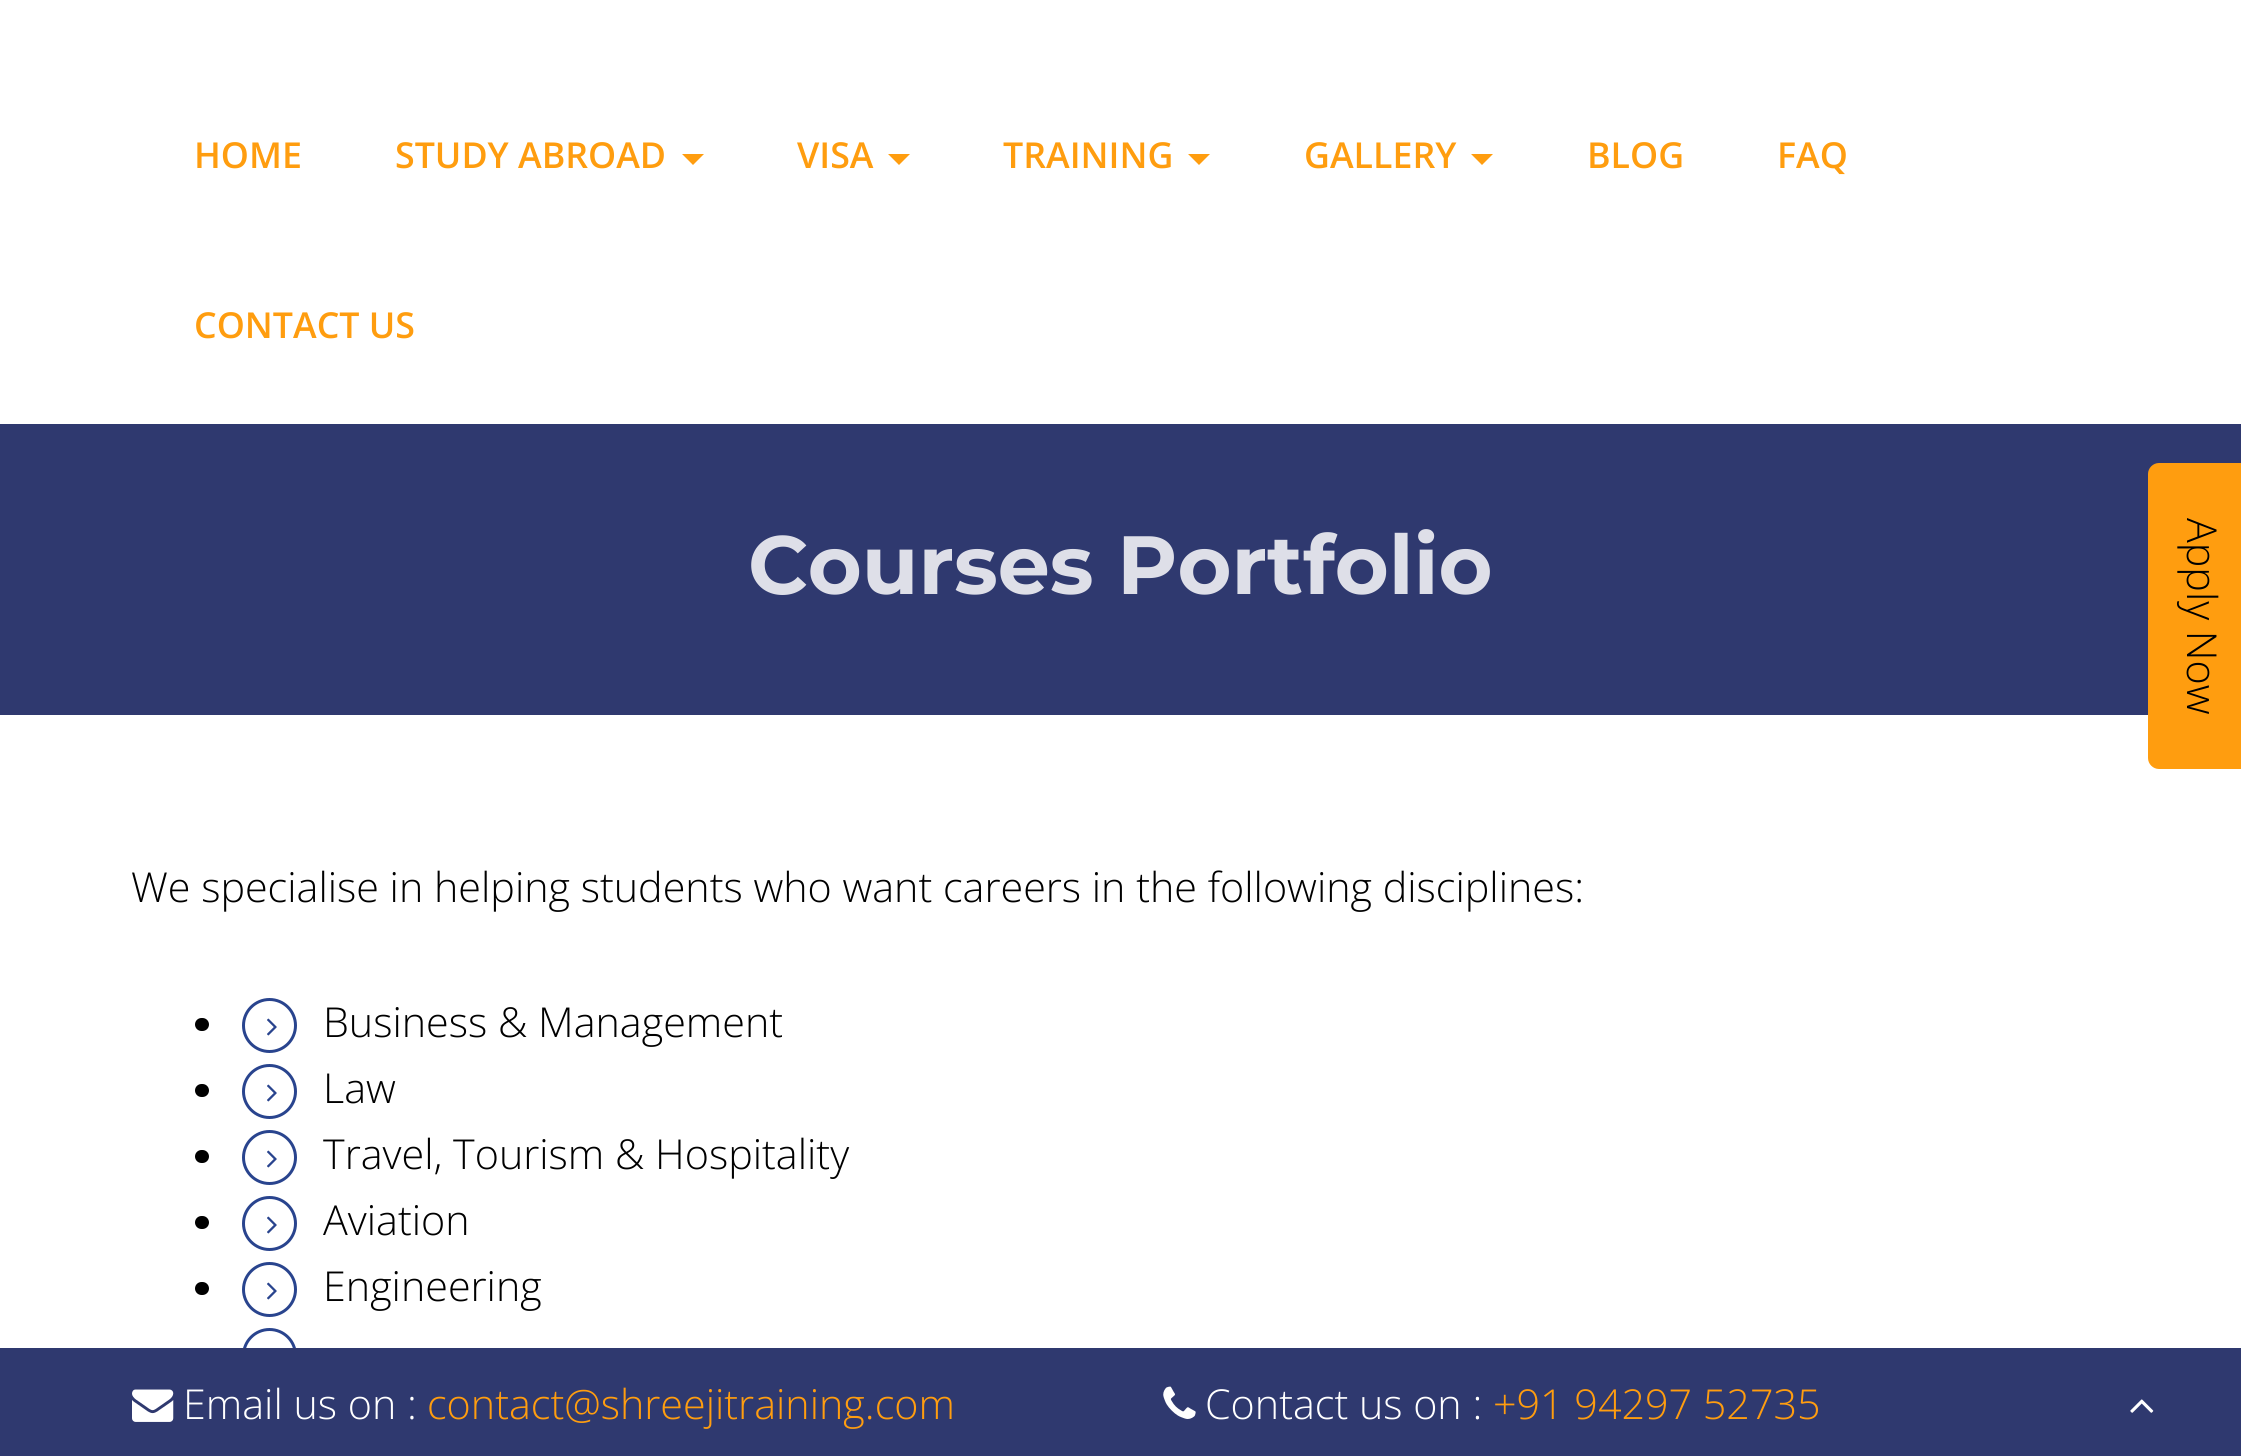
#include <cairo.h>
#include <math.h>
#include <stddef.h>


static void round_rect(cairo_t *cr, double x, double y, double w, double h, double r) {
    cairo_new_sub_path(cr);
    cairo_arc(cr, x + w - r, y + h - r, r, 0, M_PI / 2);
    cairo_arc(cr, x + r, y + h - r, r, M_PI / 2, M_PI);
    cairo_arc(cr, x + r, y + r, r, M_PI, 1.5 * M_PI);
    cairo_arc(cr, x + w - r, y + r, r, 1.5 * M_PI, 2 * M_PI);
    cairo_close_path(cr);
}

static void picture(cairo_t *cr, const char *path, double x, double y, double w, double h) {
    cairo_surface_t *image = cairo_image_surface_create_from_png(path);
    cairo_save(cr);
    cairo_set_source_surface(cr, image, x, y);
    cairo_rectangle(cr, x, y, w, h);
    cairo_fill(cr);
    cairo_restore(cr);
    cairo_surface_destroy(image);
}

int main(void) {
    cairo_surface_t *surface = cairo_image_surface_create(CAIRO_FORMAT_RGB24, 2241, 1456);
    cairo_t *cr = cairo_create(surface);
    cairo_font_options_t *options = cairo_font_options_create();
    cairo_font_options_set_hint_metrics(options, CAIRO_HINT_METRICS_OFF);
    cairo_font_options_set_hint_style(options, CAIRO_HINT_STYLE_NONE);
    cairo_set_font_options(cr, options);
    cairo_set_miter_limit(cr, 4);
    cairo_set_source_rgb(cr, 1, 1, 1);
    cairo_paint(cr);
    cairo_select_font_face(cr, "Open Sans SemiBold", CAIRO_FONT_SLANT_NORMAL, CAIRO_FONT_WEIGHT_NORMAL);
    cairo_set_font_size(cr, 35.75);
    cairo_set_source_rgb(cr, 1, 0.616, 0.059);
    cairo_move_to(cr, 194, 168);
    cairo_show_text(cr, "HOME");
    cairo_move_to(cr, 395, 168);
    cairo_show_text(cr, "STUDY ABROAD");
    cairo_new_path(cr);
    cairo_move_to(cr, 682, 154);
    cairo_line_to(cr, 704, 154);
    cairo_line_to(cr, 693, 165);
    cairo_close_path(cr);
    cairo_fill(cr);
    cairo_move_to(cr, 797, 168);
    cairo_show_text(cr, "VISA");
    cairo_new_path(cr);
    cairo_move_to(cr, 888, 154);
    cairo_line_to(cr, 910, 154);
    cairo_line_to(cr, 899, 165);
    cairo_close_path(cr);
    cairo_fill(cr);
    cairo_move_to(cr, 1003, 168);
    cairo_show_text(cr, "TRAINING");
    cairo_new_path(cr);
    cairo_move_to(cr, 1188, 154);
    cairo_line_to(cr, 1210, 154);
    cairo_line_to(cr, 1199, 165);
    cairo_close_path(cr);
    cairo_fill(cr);
    cairo_move_to(cr, 1304, 168);
    cairo_show_text(cr, "GALLERY");
    cairo_new_path(cr);
    cairo_move_to(cr, 1471, 154);
    cairo_line_to(cr, 1493, 154);
    cairo_line_to(cr, 1482, 165);
    cairo_close_path(cr);
    cairo_fill(cr);
    cairo_move_to(cr, 1587, 168);
    cairo_show_text(cr, "BLOG");
    cairo_move_to(cr, 1777, 168);
    cairo_show_text(cr, "FAQ");
    cairo_move_to(cr, 194, 338);
    cairo_show_text(cr, "CONTACT US");
    cairo_set_source_rgb(cr, 0.184, 0.224, 0.435);
    cairo_rectangle(cr, 0, 424, 2241, 291);
    cairo_fill(cr);
    cairo_select_font_face(cr, "Montserrat", CAIRO_FONT_SLANT_NORMAL, CAIRO_FONT_WEIGHT_BOLD);
    cairo_set_font_size(cr, 82.5);
    cairo_set_source_rgb(cr, 0.871, 0.875, 0.91);
    cairo_move_to(cr, 748, 594);
    cairo_show_text(cr, "Courses Portfolio");
    cairo_select_font_face(cr, "Open Sans Light", CAIRO_FONT_SLANT_NORMAL, CAIRO_FONT_WEIGHT_NORMAL);
    cairo_set_font_size(cr, 41.25);
    cairo_set_source_rgb(cr, 0, 0, 0);
    cairo_move_to(cr, 131, 902);
    cairo_show_text(cr, "We specialise in helping students who want careers in the following disciplines:");
    round_rect(cr, 195, 1018, 14, 13, 6.5);
    cairo_fill(cr);
    cairo_arc(cr, 269.5, 1025.5, 26, 0, 2 * M_PI);
    cairo_set_source_rgb(cr, 0.161, 0.267, 0.557);
    cairo_set_line_width(cr, 3);
    cairo_stroke(cr);
    picture(cr, "img1.png", 267, 1018, 10, 18);
    cairo_set_source_rgb(cr, 0, 0, 0);
    cairo_move_to(cr, 323, 1037);
    cairo_show_text(cr, "Business & Management");
    round_rect(cr, 195, 1084, 14, 13, 6.5);
    cairo_fill(cr);
    cairo_arc(cr, 269.5, 1091.5, 26, 0, 2 * M_PI);
    cairo_set_source_rgb(cr, 0.161, 0.267, 0.557);
    cairo_stroke(cr);
    picture(cr, "img1.png", 267, 1084, 10, 18);
    cairo_set_source_rgb(cr, 0, 0, 0);
    cairo_move_to(cr, 323, 1103);
    cairo_show_text(cr, "Law");
    round_rect(cr, 195, 1150, 14, 13, 6.5);
    cairo_fill(cr);
    cairo_arc(cr, 269.5, 1157.5, 26, 0, 2 * M_PI);
    cairo_set_source_rgb(cr, 0.161, 0.267, 0.557);
    cairo_stroke(cr);
    picture(cr, "img1.png", 267, 1150, 10, 18);
    cairo_set_source_rgb(cr, 0, 0, 0);
    cairo_move_to(cr, 323, 1169);
    cairo_show_text(cr, "Travel, Tourism & Hospitality");
    round_rect(cr, 195, 1216, 14, 13, 6.5);
    cairo_fill(cr);
    cairo_arc(cr, 269.5, 1223.5, 26, 0, 2 * M_PI);
    cairo_set_source_rgb(cr, 0.161, 0.267, 0.557);
    cairo_stroke(cr);
    picture(cr, "img1.png", 267, 1216, 10, 18);
    cairo_set_source_rgb(cr, 0, 0, 0);
    cairo_move_to(cr, 323, 1235);
    cairo_show_text(cr, "Aviation");
    round_rect(cr, 195, 1282, 14, 13, 6.5);
    cairo_fill(cr);
    cairo_arc(cr, 269.5, 1289.5, 26, 0, 2 * M_PI);
    cairo_set_source_rgb(cr, 0.161, 0.267, 0.557);
    cairo_stroke(cr);
    picture(cr, "img1.png", 267, 1282, 10, 18);
    cairo_set_source_rgb(cr, 0, 0, 0);
    cairo_move_to(cr, 323, 1301);
    cairo_show_text(cr, "Engineering");
    cairo_new_path(cr);
    cairo_arc(cr, 269.5, 1355.5, 26, 0, 2 * M_PI);
    cairo_set_source_rgb(cr, 0.161, 0.267, 0.557);
    cairo_stroke(cr);
    cairo_set_source_rgb(cr, 1, 0.616, 0.059);
    cairo_new_path(cr);
    cairo_move_to(cr, 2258, 474);
    cairo_line_to(cr, 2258, 758);
    cairo_curve_to(cr, 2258, 764, 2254, 769, 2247, 769);
    cairo_line_to(cr, 2159, 769);
    cairo_curve_to(cr, 2153, 769, 2148, 764, 2148, 758);
    cairo_line_to(cr, 2148, 474);
    cairo_curve_to(cr, 2148, 468, 2153, 463, 2159, 463);
    cairo_line_to(cr, 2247, 463);
    cairo_curve_to(cr, 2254, 463, 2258, 468, 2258, 474);
    cairo_close_path(cr);
    cairo_fill(cr);
    cairo_set_source_rgb(cr, 0, 0, 0);
    cairo_save(cr);
    cairo_translate(cr, 2187, 518);
    cairo_rotate(cr, 90 * M_PI / 180);
    cairo_move_to(cr, 0, 0);
    cairo_show_text(cr, "Apply Now");
    cairo_restore(cr);
    cairo_set_source_rgb(cr, 0.184, 0.224, 0.435);
    cairo_rectangle(cr, 0, 1348, 2241, 108);
    cairo_fill(cr);
    picture(cr, "img2.png", 132, 1389, 42, 33);
    cairo_set_source_rgb(cr, 1, 1, 1);
    cairo_move_to(cr, 183, 1419);
    cairo_show_text(cr, "Email us on :");
    cairo_set_source_rgb(cr, 1, 0.616, 0.059);
    cairo_move_to(cr, 427, 1419);
    cairo_show_text(cr, "contact@shreejitraining.com");
    picture(cr, "img3.png", 1163, 1386, 33, 33);
    cairo_set_source_rgb(cr, 1, 1, 1);
    cairo_move_to(cr, 1205, 1419);
    cairo_show_text(cr, "Contact us on :");
    cairo_set_source_rgb(cr, 1, 0.616, 0.059);
    cairo_move_to(cr, 1493, 1419);
    cairo_show_text(cr, "+91 94297 52735");
    picture(cr, "img4.png", 2130, 1399, 24, 14);
    cairo_surface_write_to_png(surface, "page.png");
    cairo_font_options_destroy(options);
    cairo_destroy(cr);
    cairo_surface_destroy(surface);
    return 0;
}
